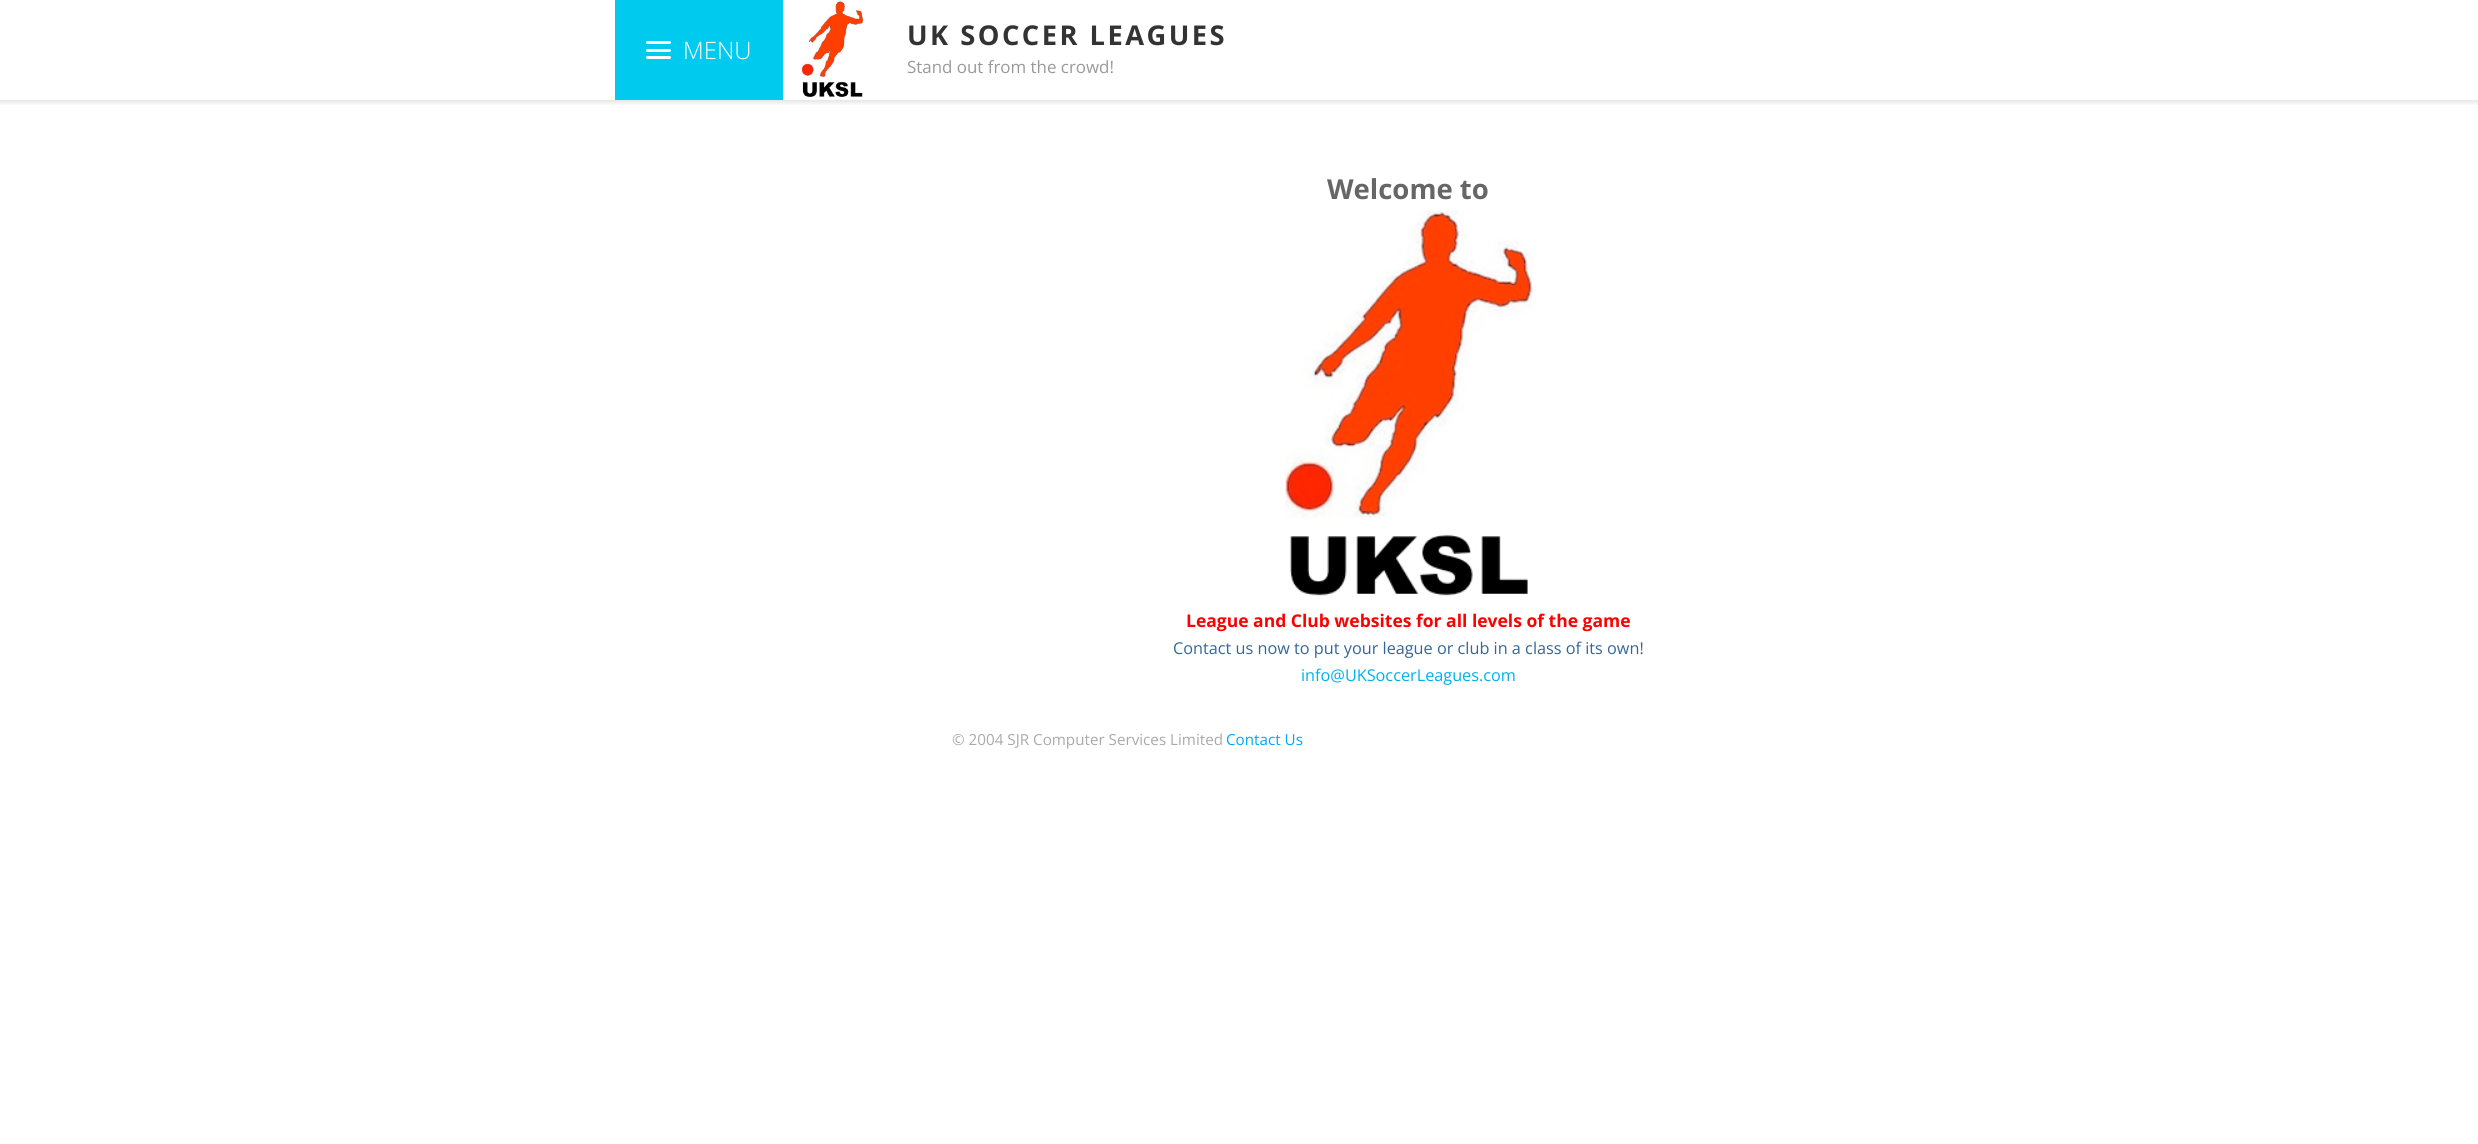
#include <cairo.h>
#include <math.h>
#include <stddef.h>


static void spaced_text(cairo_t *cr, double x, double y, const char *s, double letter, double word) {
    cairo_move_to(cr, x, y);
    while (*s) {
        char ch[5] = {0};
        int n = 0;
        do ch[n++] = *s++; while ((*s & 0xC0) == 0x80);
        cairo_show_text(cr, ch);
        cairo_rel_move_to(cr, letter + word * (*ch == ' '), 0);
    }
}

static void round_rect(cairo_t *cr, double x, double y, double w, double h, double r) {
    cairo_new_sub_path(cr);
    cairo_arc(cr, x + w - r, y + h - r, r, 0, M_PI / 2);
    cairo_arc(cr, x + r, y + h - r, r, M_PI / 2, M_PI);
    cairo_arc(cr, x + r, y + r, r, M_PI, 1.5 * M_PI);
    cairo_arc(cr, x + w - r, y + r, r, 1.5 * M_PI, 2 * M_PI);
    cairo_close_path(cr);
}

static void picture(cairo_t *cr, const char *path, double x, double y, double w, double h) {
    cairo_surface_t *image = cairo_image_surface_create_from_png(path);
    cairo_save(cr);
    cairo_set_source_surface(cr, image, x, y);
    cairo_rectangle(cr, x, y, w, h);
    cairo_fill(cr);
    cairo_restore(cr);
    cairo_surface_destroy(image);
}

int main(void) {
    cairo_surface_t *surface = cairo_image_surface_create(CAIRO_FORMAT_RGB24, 2478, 1144);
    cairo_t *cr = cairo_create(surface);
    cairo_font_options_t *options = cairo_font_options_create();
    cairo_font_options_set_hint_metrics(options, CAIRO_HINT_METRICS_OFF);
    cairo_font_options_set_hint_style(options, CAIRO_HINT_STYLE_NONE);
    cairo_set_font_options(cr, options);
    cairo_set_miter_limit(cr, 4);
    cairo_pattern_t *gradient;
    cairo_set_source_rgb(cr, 1, 1, 1);
    cairo_paint(cr);
    picture(cr, "img1.png", 801, 1, 63, 96);
    cairo_select_font_face(cr, "Open Sans", CAIRO_FONT_SLANT_NORMAL, CAIRO_FONT_WEIGHT_BOLD);
    cairo_set_font_size(cr, 27.25);
    cairo_set_source_rgb(cr, 0.2, 0.2, 0.2);
    spaced_text(cr, 907, 45, "UK SOCCER LEAGUES", 2.5, 0);
    cairo_set_source_rgb(cr, 0, 0.796, 0.933);
    cairo_rectangle(cr, 615, 0, 168, 100);
    cairo_fill(cr);
    cairo_set_source_rgb(cr, 1, 1, 1);
    round_rect(cr, 646, 41, 25, 3, 1.5);
    cairo_fill(cr);
    round_rect(cr, 646, 49, 25, 3, 1.5);
    cairo_fill(cr);
    round_rect(cr, 646, 56, 25, 3, 1.5);
    cairo_fill(cr);
    cairo_select_font_face(cr, "Open Sans Light", CAIRO_FONT_SLANT_NORMAL, CAIRO_FONT_WEIGHT_NORMAL);
    cairo_set_font_size(cr, 24);
    cairo_move_to(cr, 683, 59);
    cairo_show_text(cr, "MENU");
    cairo_select_font_face(cr, "Open Sans", CAIRO_FONT_SLANT_NORMAL, CAIRO_FONT_WEIGHT_NORMAL);
    cairo_set_font_size(cr, 16.9);
    cairo_set_source_rgb(cr, 0.6, 0.6, 0.6);
    cairo_move_to(cr, 907, 73);
    cairo_show_text(cr, "Stand out from the crowd!");
    gradient = cairo_pattern_create_linear(1239, 100, 1239, 106);
    cairo_pattern_add_color_stop_rgba(gradient, 0, 0.902, 0.902, 0.902, 1);
    cairo_pattern_add_color_stop_rgba(gradient, 1, 1, 1, 1, 1);
    cairo_set_source(cr, gradient);
    cairo_pattern_destroy(gradient);
    cairo_rectangle(cr, 0, 100, 2478, 5);
    cairo_fill(cr);
    cairo_select_font_face(cr, "Open Sans", CAIRO_FONT_SLANT_NORMAL, CAIRO_FONT_WEIGHT_BOLD);
    cairo_set_font_size(cr, 27.5);
    cairo_set_source_rgb(cr, 0.4, 0.4, 0.4);
    cairo_move_to(cr, 1327, 199);
    cairo_show_text(cr, "Welcome to");
    picture(cr, "img2.png", 1285, 210, 248, 386);
    cairo_set_font_size(cr, 17.5);
    cairo_set_source_rgb(cr, 1, 0, 0);
    cairo_move_to(cr, 1186, 627);
    cairo_show_text(cr, "League and Club websites for all levels of the game");
    cairo_select_font_face(cr, "Open Sans", CAIRO_FONT_SLANT_NORMAL, CAIRO_FONT_WEIGHT_NORMAL);
    cairo_set_font_size(cr, 16.25);
    cairo_set_source_rgb(cr, 0.2, 0.4, 0.6);
    cairo_move_to(cr, 1173, 654);
    cairo_show_text(cr, "Contact us now to put your league or club in a class of its own!");
    cairo_set_source_rgb(cr, 0, 0.69, 0.925);
    cairo_move_to(cr, 1301, 681);
    cairo_show_text(cr, "info@UKSoccerLeagues.com");
    cairo_set_font_size(cr, 15.2);
    cairo_set_source_rgb(cr, 0.667, 0.667, 0.667);
    cairo_move_to(cr, 952, 745);
    cairo_show_text(cr, "© 2004 SJR Computer Services Limited");
    cairo_set_source_rgb(cr, 0, 0.651, 1);
    cairo_move_to(cr, 1226, 745);
    cairo_show_text(cr, "Contact Us");
    cairo_surface_write_to_png(surface, "page.png");
    cairo_font_options_destroy(options);
    cairo_destroy(cr);
    cairo_surface_destroy(surface);
    return 0;
}
